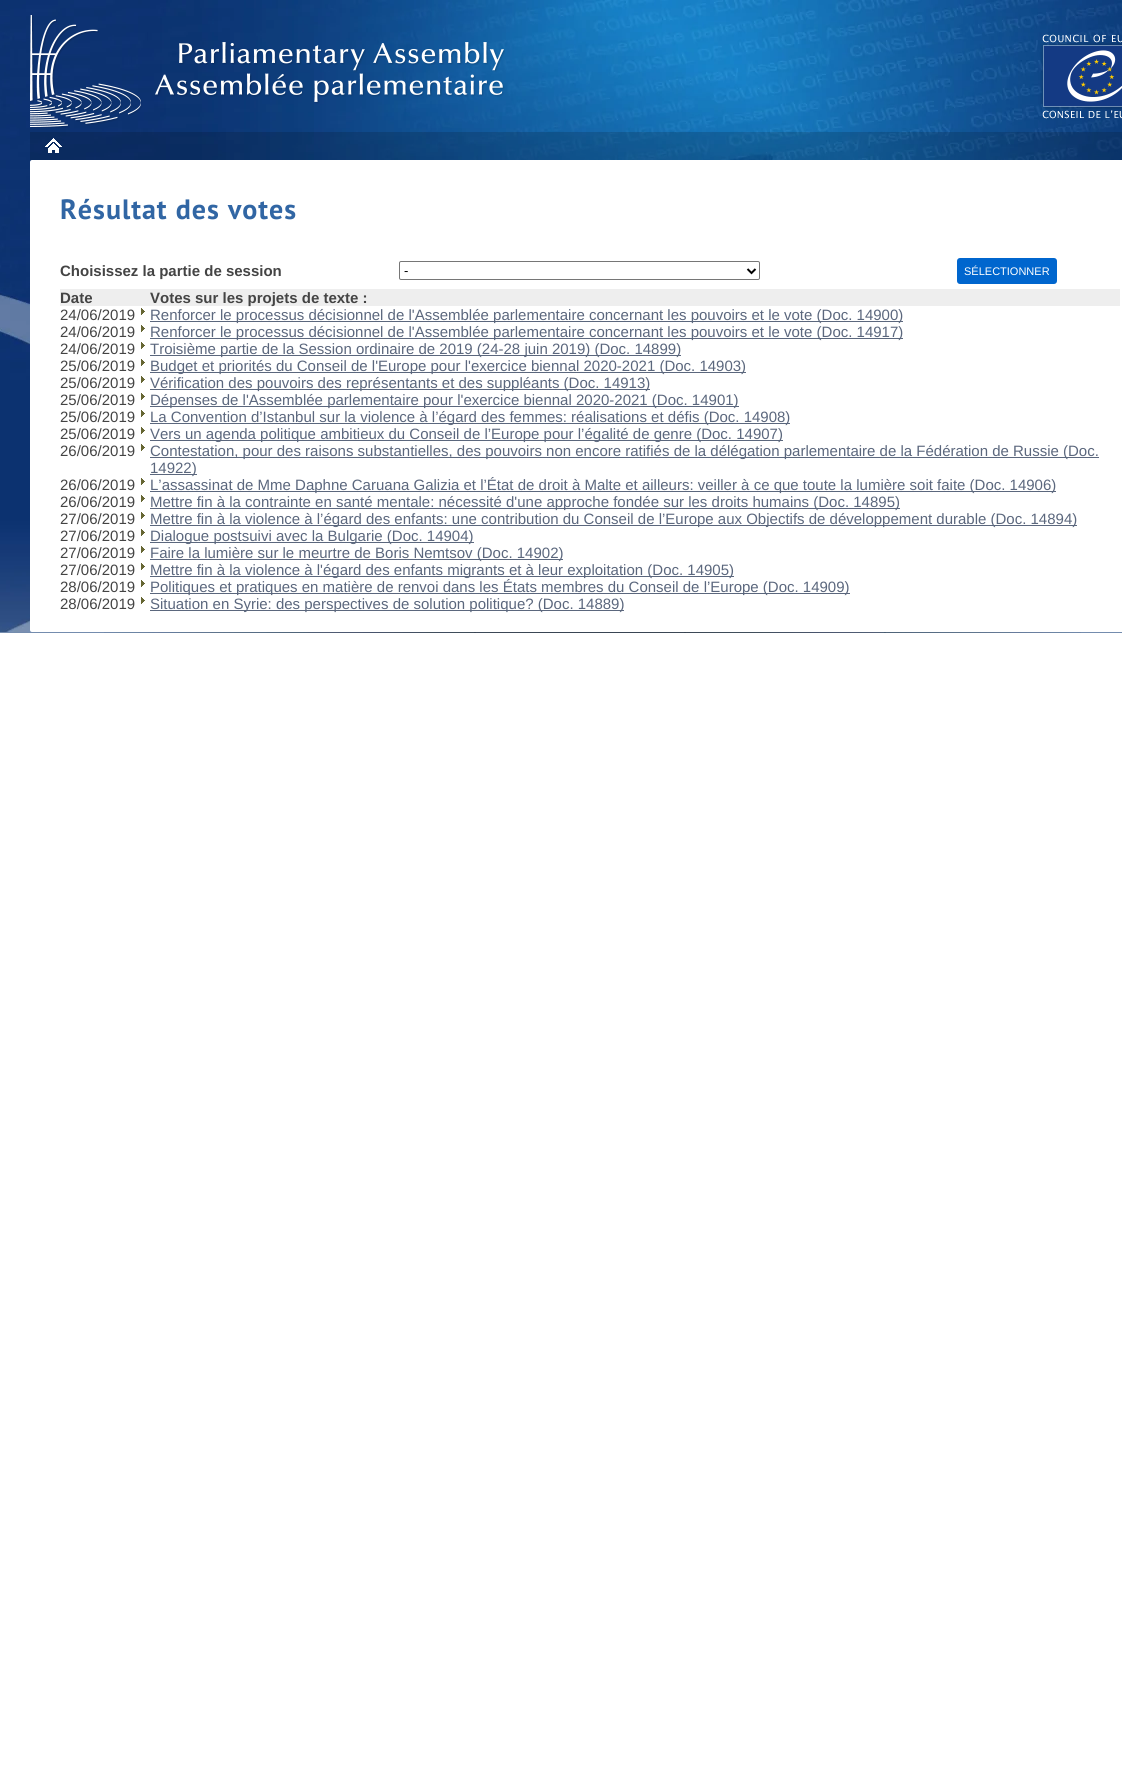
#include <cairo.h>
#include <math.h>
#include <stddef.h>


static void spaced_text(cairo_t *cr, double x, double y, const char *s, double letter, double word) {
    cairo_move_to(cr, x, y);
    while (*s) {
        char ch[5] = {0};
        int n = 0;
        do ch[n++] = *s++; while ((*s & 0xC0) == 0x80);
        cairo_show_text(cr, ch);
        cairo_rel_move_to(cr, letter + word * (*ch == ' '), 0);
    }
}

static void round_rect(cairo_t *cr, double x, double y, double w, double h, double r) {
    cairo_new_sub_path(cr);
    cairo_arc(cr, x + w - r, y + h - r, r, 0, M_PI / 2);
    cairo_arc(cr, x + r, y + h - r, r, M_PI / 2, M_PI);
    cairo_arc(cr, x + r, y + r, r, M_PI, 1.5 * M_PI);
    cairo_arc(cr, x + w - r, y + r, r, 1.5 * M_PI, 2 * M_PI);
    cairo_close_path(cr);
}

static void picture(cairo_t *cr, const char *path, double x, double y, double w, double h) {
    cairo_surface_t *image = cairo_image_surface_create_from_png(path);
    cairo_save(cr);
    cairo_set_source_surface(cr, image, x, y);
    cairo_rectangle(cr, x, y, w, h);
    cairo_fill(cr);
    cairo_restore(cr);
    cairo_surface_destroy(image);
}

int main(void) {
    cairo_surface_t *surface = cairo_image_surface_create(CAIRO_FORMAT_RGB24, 1122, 1765);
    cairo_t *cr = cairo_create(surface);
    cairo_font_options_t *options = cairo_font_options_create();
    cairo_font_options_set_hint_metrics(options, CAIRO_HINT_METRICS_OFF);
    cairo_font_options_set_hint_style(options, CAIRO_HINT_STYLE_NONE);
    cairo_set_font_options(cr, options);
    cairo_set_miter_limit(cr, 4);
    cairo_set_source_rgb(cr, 1, 1, 1);
    cairo_paint(cr);
    picture(cr, "img1.png", 0, 0, 1122, 632);
    picture(cr, "img2.png", 30, 15, 475, 113);
    picture(cr, "img3.png", 1040, 34, 82, 85);
    cairo_set_source_rgba(cr, 0, 0, 0, 0.15);
    cairo_rectangle(cr, 30, 132, 1092, 28);
    cairo_fill(cr);
    picture(cr, "img4.png", 45, 138, 17, 15);
    cairo_set_source_rgb(cr, 1, 1, 1);
    round_rect(cr, 30, 160, 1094, 472, 2);
    cairo_fill(cr);
    cairo_select_font_face(cr, "PT Sans", CAIRO_FONT_SLANT_NORMAL, CAIRO_FONT_WEIGHT_BOLD);
    cairo_set_font_size(cr, 28);
    cairo_set_source_rgb(cr, 0.192, 0.4, 0.643);
    spaced_text(cr, 60, 219, "Résultat des votes", 1, 0);
    cairo_select_font_face(cr, "Liberation Sans", CAIRO_FONT_SLANT_NORMAL, CAIRO_FONT_WEIGHT_BOLD);
    cairo_set_font_size(cr, 15);
    cairo_set_source_rgb(cr, 0.267, 0.267, 0.267);
    cairo_move_to(cr, 60, 276);
    cairo_show_text(cr, "Choisissez la partie de session");
    round_rect(cr, 399.5, 261.5, 360, 18, 1.5);
    cairo_set_source_rgb(cr, 0.463, 0.463, 0.463);
    cairo_set_line_width(cr, 1);
    cairo_stroke(cr);
    cairo_new_path(cr);
    cairo_move_to(cr, 747.5, 269);
    cairo_line_to(cr, 751.5, 273);
    cairo_line_to(cr, 755.5, 269);
    cairo_set_source_rgb(cr, 0, 0, 0);
    cairo_set_line_width(cr, 2);
    cairo_stroke(cr);
    cairo_select_font_face(cr, "Liberation Sans", CAIRO_FONT_SLANT_NORMAL, CAIRO_FONT_WEIGHT_NORMAL);
    cairo_set_font_size(cr, 13);
    cairo_move_to(cr, 404, 275);
    cairo_show_text(cr, "-");
    cairo_set_source_rgb(cr, 0, 0.4, 0.808);
    round_rect(cr, 957, 258, 100, 26, 3);
    cairo_fill(cr);
    cairo_set_font_size(cr, 11);
    cairo_set_source_rgb(cr, 1, 1, 1);
    cairo_move_to(cr, 964, 275);
    cairo_show_text(cr, "SÉLECTIONNER");
    cairo_set_source_rgb(cr, 0.933, 0.933, 0.933);
    cairo_rectangle(cr, 60, 289, 1060, 17);
    cairo_fill(cr);
    cairo_select_font_face(cr, "Liberation Sans", CAIRO_FONT_SLANT_NORMAL, CAIRO_FONT_WEIGHT_BOLD);
    cairo_set_font_size(cr, 15);
    cairo_set_source_rgb(cr, 0.267, 0.267, 0.267);
    cairo_move_to(cr, 60, 303);
    cairo_show_text(cr, "Date");
    cairo_move_to(cr, 150, 303);
    cairo_show_text(cr, "Votes sur les projets de texte :");
    cairo_select_font_face(cr, "Liberation Sans", CAIRO_FONT_SLANT_NORMAL, CAIRO_FONT_WEIGHT_NORMAL);
    cairo_move_to(cr, 60, 320);
    cairo_show_text(cr, "24/06/2019");
    picture(cr, "img5.png", 141, 308, 4, 7);
    cairo_set_source_rgb(cr, 0.357, 0.404, 0.49);
    cairo_rectangle(cr, 150, 321, 753, 1);
    cairo_fill(cr);
    cairo_move_to(cr, 150, 320);
    cairo_show_text(cr, "Renforcer le processus décisionnel de l'Assemblée parlementaire concernant les pouvoirs et le vote (Doc. 14900)");
    cairo_set_source_rgb(cr, 0.267, 0.267, 0.267);
    cairo_move_to(cr, 60, 337);
    cairo_show_text(cr, "24/06/2019");
    picture(cr, "img5.png", 141, 325, 4, 7);
    cairo_set_source_rgb(cr, 0.357, 0.404, 0.49);
    cairo_rectangle(cr, 150, 338, 753, 1);
    cairo_fill(cr);
    cairo_move_to(cr, 150, 337);
    cairo_show_text(cr, "Renforcer le processus décisionnel de l'Assemblée parlementaire concernant les pouvoirs et le vote (Doc. 14917)");
    cairo_set_source_rgb(cr, 0.267, 0.267, 0.267);
    cairo_move_to(cr, 60, 354);
    cairo_show_text(cr, "24/06/2019");
    picture(cr, "img5.png", 141, 342, 4, 7);
    cairo_set_source_rgb(cr, 0.357, 0.404, 0.49);
    cairo_rectangle(cr, 150, 355, 531, 1);
    cairo_fill(cr);
    cairo_move_to(cr, 150, 354);
    cairo_show_text(cr, "Troisième partie de la Session ordinaire de 2019 (24-28 juin 2019) (Doc. 14899)");
    cairo_set_source_rgb(cr, 0.267, 0.267, 0.267);
    cairo_move_to(cr, 60, 371);
    cairo_show_text(cr, "25/06/2019");
    picture(cr, "img5.png", 141, 359, 4, 7);
    cairo_set_source_rgb(cr, 0.357, 0.404, 0.49);
    cairo_rectangle(cr, 150, 372, 596, 1);
    cairo_fill(cr);
    cairo_move_to(cr, 150, 371);
    cairo_show_text(cr, "Budget et priorités du Conseil de l'Europe pour l'exercice biennal 2020-2021 (Doc. 14903)");
    cairo_set_source_rgb(cr, 0.267, 0.267, 0.267);
    cairo_move_to(cr, 60, 388);
    cairo_show_text(cr, "25/06/2019");
    picture(cr, "img5.png", 141, 376, 4, 7);
    cairo_set_source_rgb(cr, 0.357, 0.404, 0.49);
    cairo_rectangle(cr, 150, 389, 500, 1);
    cairo_fill(cr);
    cairo_move_to(cr, 150, 388);
    cairo_show_text(cr, "Vérification des pouvoirs des représentants et des suppléants (Doc. 14913)");
    cairo_set_source_rgb(cr, 0.267, 0.267, 0.267);
    cairo_move_to(cr, 60, 405);
    cairo_show_text(cr, "25/06/2019");
    picture(cr, "img5.png", 141, 393, 4, 7);
    cairo_set_source_rgb(cr, 0.357, 0.404, 0.49);
    cairo_rectangle(cr, 150, 406, 589, 1);
    cairo_fill(cr);
    cairo_move_to(cr, 150, 405);
    cairo_show_text(cr, "Dépenses de l'Assemblée parlementaire pour l'exercice biennal 2020-2021 (Doc. 14901)");
    cairo_set_source_rgb(cr, 0.267, 0.267, 0.267);
    cairo_move_to(cr, 60, 422);
    cairo_show_text(cr, "25/06/2019");
    picture(cr, "img5.png", 141, 410, 4, 7);
    cairo_set_source_rgb(cr, 0.357, 0.404, 0.49);
    cairo_rectangle(cr, 150, 423, 640, 1);
    cairo_fill(cr);
    cairo_move_to(cr, 150, 422);
    cairo_show_text(cr, "La Convention d’Istanbul sur la violence à l’égard des femmes: réalisations et défis (Doc. 14908)");
    cairo_set_source_rgb(cr, 0.267, 0.267, 0.267);
    cairo_move_to(cr, 60, 439);
    cairo_show_text(cr, "25/06/2019");
    picture(cr, "img5.png", 141, 427, 4, 7);
    cairo_set_source_rgb(cr, 0.357, 0.404, 0.49);
    cairo_rectangle(cr, 150, 440, 633, 1);
    cairo_fill(cr);
    cairo_move_to(cr, 150, 439);
    cairo_show_text(cr, "Vers un agenda politique ambitieux du Conseil de l’Europe pour l’égalité de genre (Doc. 14907)");
    cairo_set_source_rgb(cr, 0.267, 0.267, 0.267);
    cairo_move_to(cr, 60, 456);
    cairo_show_text(cr, "26/06/2019");
    picture(cr, "img5.png", 141, 444, 4, 7);
    cairo_set_source_rgb(cr, 0.357, 0.404, 0.49);
    cairo_rectangle(cr, 150, 457, 949, 1);
    cairo_fill(cr);
    cairo_move_to(cr, 150, 456);
    cairo_show_text(cr, "Contestation, pour des raisons substantielles, des pouvoirs non encore ratifiés de la délégation parlementaire de la Fédération de Russie (Doc.");
    cairo_rectangle(cr, 150, 474, 47, 1);
    cairo_fill(cr);
    cairo_move_to(cr, 150, 473);
    cairo_show_text(cr, "14922)");
    cairo_set_source_rgb(cr, 0.267, 0.267, 0.267);
    cairo_move_to(cr, 60, 490);
    cairo_show_text(cr, "26/06/2019");
    picture(cr, "img5.png", 141, 478, 4, 7);
    cairo_set_source_rgb(cr, 0.357, 0.404, 0.49);
    cairo_rectangle(cr, 150, 491, 906, 1);
    cairo_fill(cr);
    cairo_move_to(cr, 150, 490);
    cairo_show_text(cr, "L’assassinat de Mme Daphne Caruana Galizia et l’État de droit à Malte et ailleurs: veiller à ce que toute la lumière soit faite (Doc. 14906)");
    cairo_set_source_rgb(cr, 0.267, 0.267, 0.267);
    cairo_move_to(cr, 60, 507);
    cairo_show_text(cr, "26/06/2019");
    picture(cr, "img5.png", 141, 495, 4, 7);
    cairo_set_source_rgb(cr, 0.357, 0.404, 0.49);
    cairo_rectangle(cr, 150, 508, 750, 1);
    cairo_fill(cr);
    cairo_move_to(cr, 150, 507);
    cairo_show_text(cr, "Mettre fin à la contrainte en santé mentale: nécessité d'une approche fondée sur les droits humains (Doc. 14895)");
    cairo_set_source_rgb(cr, 0.267, 0.267, 0.267);
    cairo_move_to(cr, 60, 524);
    cairo_show_text(cr, "27/06/2019");
    picture(cr, "img5.png", 141, 512, 4, 7);
    cairo_set_source_rgb(cr, 0.357, 0.404, 0.49);
    cairo_rectangle(cr, 150, 525, 927, 1);
    cairo_fill(cr);
    cairo_move_to(cr, 150, 524);
    cairo_show_text(cr, "Mettre fin à la violence à l’égard des enfants: une contribution du Conseil de l’Europe aux Objectifs de développement durable (Doc. 14894)");
    cairo_set_source_rgb(cr, 0.267, 0.267, 0.267);
    cairo_move_to(cr, 60, 541);
    cairo_show_text(cr, "27/06/2019");
    picture(cr, "img5.png", 141, 529, 4, 7);
    cairo_set_source_rgb(cr, 0.357, 0.404, 0.49);
    cairo_rectangle(cr, 150, 542, 324, 1);
    cairo_fill(cr);
    cairo_move_to(cr, 150, 541);
    cairo_show_text(cr, "Dialogue postsuivi avec la Bulgarie (Doc. 14904)");
    cairo_set_source_rgb(cr, 0.267, 0.267, 0.267);
    cairo_move_to(cr, 60, 558);
    cairo_show_text(cr, "27/06/2019");
    picture(cr, "img5.png", 141, 546, 4, 7);
    cairo_set_source_rgb(cr, 0.357, 0.404, 0.49);
    cairo_rectangle(cr, 150, 559, 413, 1);
    cairo_fill(cr);
    cairo_move_to(cr, 150, 558);
    cairo_show_text(cr, "Faire la lumière sur le meurtre de Boris Nemtsov (Doc. 14902)");
    cairo_set_source_rgb(cr, 0.267, 0.267, 0.267);
    cairo_move_to(cr, 60, 575);
    cairo_show_text(cr, "27/06/2019");
    picture(cr, "img5.png", 141, 563, 4, 7);
    cairo_set_source_rgb(cr, 0.357, 0.404, 0.49);
    cairo_rectangle(cr, 150, 576, 584, 1);
    cairo_fill(cr);
    cairo_move_to(cr, 150, 575);
    cairo_show_text(cr, "Mettre fin à la violence à l'égard des enfants migrants et à leur exploitation (Doc. 14905)");
    cairo_set_source_rgb(cr, 0.267, 0.267, 0.267);
    cairo_move_to(cr, 60, 592);
    cairo_show_text(cr, "28/06/2019");
    picture(cr, "img5.png", 141, 580, 4, 7);
    cairo_set_source_rgb(cr, 0.357, 0.404, 0.49);
    cairo_rectangle(cr, 150, 593, 700, 1);
    cairo_fill(cr);
    cairo_move_to(cr, 150, 592);
    cairo_show_text(cr, "Politiques et pratiques en matière de renvoi dans les États membres du Conseil de l’Europe (Doc. 14909)");
    cairo_set_source_rgb(cr, 0.267, 0.267, 0.267);
    cairo_move_to(cr, 60, 609);
    cairo_show_text(cr, "28/06/2019");
    picture(cr, "img5.png", 141, 597, 4, 7);
    cairo_set_source_rgb(cr, 0.357, 0.404, 0.49);
    cairo_rectangle(cr, 150, 610, 474, 1);
    cairo_fill(cr);
    cairo_move_to(cr, 150, 609);
    cairo_show_text(cr, "Situation en Syrie: des perspectives de solution politique? (Doc. 14889)");
    cairo_set_source_rgb(cr, 0.455, 0.549, 0.682);
    cairo_rectangle(cr, 0, 632, 1122, 1);
    cairo_fill(cr);
    picture(cr, "img6.png", 104, 632, 977, 1);
    cairo_surface_write_to_png(surface, "page.png");
    cairo_font_options_destroy(options);
    cairo_destroy(cr);
    cairo_surface_destroy(surface);
    return 0;
}
